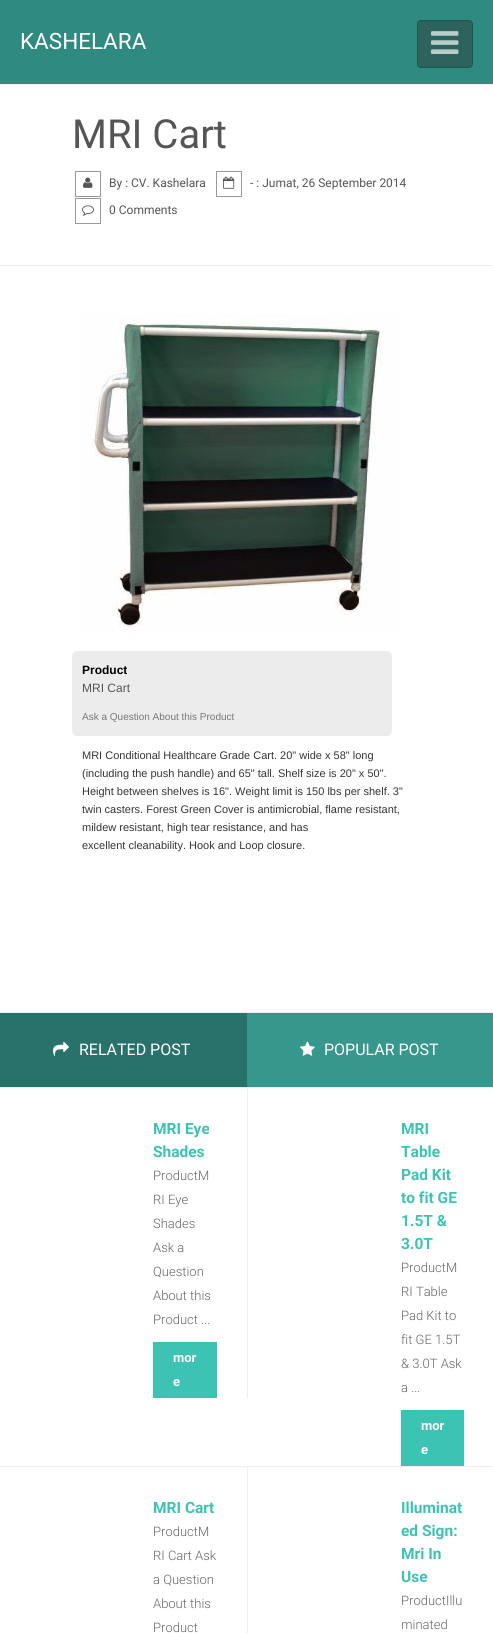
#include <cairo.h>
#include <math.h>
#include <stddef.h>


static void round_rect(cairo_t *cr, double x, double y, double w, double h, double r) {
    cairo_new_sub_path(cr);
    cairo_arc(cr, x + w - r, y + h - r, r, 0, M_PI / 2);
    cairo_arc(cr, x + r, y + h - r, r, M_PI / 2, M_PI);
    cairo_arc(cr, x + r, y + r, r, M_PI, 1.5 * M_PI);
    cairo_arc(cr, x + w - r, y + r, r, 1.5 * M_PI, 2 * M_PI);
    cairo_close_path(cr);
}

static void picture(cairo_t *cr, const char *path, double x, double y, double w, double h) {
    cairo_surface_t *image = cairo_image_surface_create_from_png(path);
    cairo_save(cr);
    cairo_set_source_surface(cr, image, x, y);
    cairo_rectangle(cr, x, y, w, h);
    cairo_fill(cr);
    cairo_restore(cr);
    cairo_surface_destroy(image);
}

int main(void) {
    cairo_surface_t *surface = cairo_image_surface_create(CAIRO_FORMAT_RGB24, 493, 1633);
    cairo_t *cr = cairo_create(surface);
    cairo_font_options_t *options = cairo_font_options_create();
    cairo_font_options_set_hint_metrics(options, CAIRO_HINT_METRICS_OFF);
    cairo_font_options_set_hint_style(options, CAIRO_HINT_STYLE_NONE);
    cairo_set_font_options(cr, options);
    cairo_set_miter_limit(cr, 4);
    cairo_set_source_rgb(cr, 1, 1, 1);
    cairo_paint(cr);
    cairo_set_source_rgb(cr, 0.184, 0.545, 0.506);
    cairo_rectangle(cr, 0, 0, 493, 84);
    cairo_fill(cr);
    cairo_select_font_face(cr, "Roboto", CAIRO_FONT_SLANT_NORMAL, CAIRO_FONT_WEIGHT_NORMAL);
    cairo_set_font_size(cr, 22.5);
    cairo_set_source_rgb(cr, 1, 1, 1);
    cairo_move_to(cr, 20, 49);
    cairo_show_text(cr, "KASHELARA");
    cairo_set_source_rgb(cr, 0.18, 0.388, 0.365);
    round_rect(cr, 417.5, 20.5, 55, 47, 3.5);
    cairo_fill_preserve(cr);
    cairo_set_source_rgb(cr, 0.106, 0.341, 0.314);
    cairo_set_line_width(cr, 1);
    cairo_stroke(cr);
    picture(cr, "img1.png", 431, 31, 28, 23);
    cairo_set_source_rgb(cr, 0.933, 0.933, 0.933);
    cairo_rectangle(cr, 0, 84, 493, 1);
    cairo_fill(cr);
    cairo_rectangle(cr, 0, 265, 493, 1);
    cairo_fill(cr);
    cairo_set_font_size(cr, 40);
    cairo_set_source_rgb(cr, 0.333, 0.333, 0.333);
    cairo_move_to(cr, 72, 148);
    cairo_show_text(cr, "MRI Cart");
    cairo_rectangle(cr, 75.5, 171.5, 25, 25);
    cairo_set_source_rgb(cr, 0.6, 0.6, 0.6);
    cairo_stroke(cr);
    picture(cr, "img2.png", 83, 177, 10, 11);
    cairo_set_font_size(cr, 12);
    cairo_set_source_rgb(cr, 0.333, 0.333, 0.333);
    cairo_move_to(cr, 109, 187);
    cairo_show_text(cr, "By : CV. Kashelara");
    cairo_rectangle(cr, 216.5, 171.5, 25, 25);
    cairo_set_source_rgb(cr, 0.6, 0.6, 0.6);
    cairo_stroke(cr);
    picture(cr, "img3.png", 223, 176, 12, 13);
    cairo_set_source_rgb(cr, 0.333, 0.333, 0.333);
    cairo_move_to(cr, 250, 187);
    cairo_show_text(cr, "- : Jumat, 26 September 2014");
    cairo_rectangle(cr, 75.5, 198.5, 25, 25);
    cairo_set_source_rgb(cr, 0.6, 0.6, 0.6);
    cairo_stroke(cr);
    picture(cr, "img4.png", 82, 205, 12, 11);
    cairo_set_source_rgb(cr, 0.333, 0.333, 0.333);
    cairo_move_to(cr, 109, 214);
    cairo_show_text(cr, "0 Comments");
    picture(cr, "img5.png", 79, 314, 320, 320);
    cairo_set_source_rgb(cr, 0.925, 0.925, 0.925);
    round_rect(cr, 72, 651, 320, 85, 5);
    cairo_fill(cr);
    cairo_select_font_face(cr, "Liberation Sans", CAIRO_FONT_SLANT_NORMAL, CAIRO_FONT_WEIGHT_BOLD);
    cairo_set_source_rgb(cr, 0, 0, 0);
    cairo_move_to(cr, 82, 674);
    cairo_show_text(cr, "Product");
    cairo_select_font_face(cr, "Liberation Sans", CAIRO_FONT_SLANT_NORMAL, CAIRO_FONT_WEIGHT_NORMAL);
    cairo_set_source_rgb(cr, 0.333, 0.333, 0.333);
    cairo_move_to(cr, 82, 692);
    cairo_show_text(cr, "MRI Cart");
    cairo_set_font_size(cr, 10);
    cairo_set_source_rgb(cr, 0.467, 0.467, 0.467);
    cairo_move_to(cr, 82, 720);
    cairo_show_text(cr, "Ask a Question About this Product");
    cairo_set_font_size(cr, 11);
    cairo_set_source_rgb(cr, 0.208, 0.208, 0.208);
    cairo_move_to(cr, 82, 759);
    cairo_show_text(cr, "MRI Conditional Healthcare Grade Cart. 20\" wide x 58\" long");
    cairo_move_to(cr, 82, 777);
    cairo_show_text(cr, "(including the push handle) and 65\" tall. Shelf size is 20\" x 50\".");
    cairo_move_to(cr, 82, 795);
    cairo_show_text(cr, "Height between shelves is 16\". Weight limit is 150 lbs per shelf. 3\"");
    cairo_move_to(cr, 82, 813);
    cairo_show_text(cr, "twin casters. Forest Green Cover is antimicrobial, flame resistant,");
    cairo_move_to(cr, 82, 831);
    cairo_show_text(cr, "mildew resistant, high tear resistance, and has");
    cairo_move_to(cr, 82, 849);
    cairo_show_text(cr, "excellent cleanability. Hook and Loop closure.");
    cairo_set_source_rgb(cr, 0.933, 0.933, 0.933);
    cairo_rectangle(cr, 0, 1012, 493, 1);
    cairo_fill(cr);
    cairo_set_source_rgb(cr, 0.161, 0.447, 0.42);
    cairo_rectangle(cr, 0, 1013, 247, 74);
    cairo_fill(cr);
    picture(cr, "img6.png", 53, 1041, 16, 16);
    cairo_select_font_face(cr, "Roboto", CAIRO_FONT_SLANT_NORMAL, CAIRO_FONT_WEIGHT_NORMAL);
    cairo_set_font_size(cr, 16);
    cairo_set_source_rgb(cr, 1, 1, 1);
    cairo_move_to(cr, 79, 1055);
    cairo_show_text(cr, "RELATED POST");
    cairo_set_source_rgb(cr, 0.933, 0.933, 0.933);
    cairo_rectangle(cr, 0, 1087, 493, 1);
    cairo_fill(cr);
    cairo_rectangle(cr, 247, 1087, 1, 311);
    cairo_fill(cr);
    cairo_select_font_face(cr, "Roboto", CAIRO_FONT_SLANT_NORMAL, CAIRO_FONT_WEIGHT_BOLD);
    cairo_set_font_size(cr, 15.5);
    cairo_set_source_rgb(cr, 0.235, 0.765, 0.706);
    cairo_move_to(cr, 153, 1134);
    cairo_show_text(cr, "MRI Eye");
    cairo_move_to(cr, 153, 1157);
    cairo_show_text(cr, "Shades");
    cairo_select_font_face(cr, "Roboto Light", CAIRO_FONT_SLANT_NORMAL, CAIRO_FONT_WEIGHT_NORMAL);
    cairo_set_font_size(cr, 13);
    cairo_set_source_rgb(cr, 0.4, 0.4, 0.4);
    cairo_move_to(cr, 153, 1180);
    cairo_show_text(cr, "ProductM");
    cairo_move_to(cr, 153, 1204);
    cairo_show_text(cr, "RI Eye");
    cairo_move_to(cr, 153, 1228);
    cairo_show_text(cr, "Shades");
    cairo_move_to(cr, 153, 1252);
    cairo_show_text(cr, "Ask a");
    cairo_move_to(cr, 153, 1276);
    cairo_show_text(cr, "Question");
    cairo_move_to(cr, 153, 1300);
    cairo_show_text(cr, "About this");
    cairo_move_to(cr, 153, 1324);
    cairo_show_text(cr, "Product ...");
    cairo_set_source_rgb(cr, 0.235, 0.765, 0.706);
    cairo_rectangle(cr, 153, 1342, 64, 56);
    cairo_fill(cr);
    cairo_select_font_face(cr, "Roboto", CAIRO_FONT_SLANT_NORMAL, CAIRO_FONT_WEIGHT_BOLD);
    cairo_set_source_rgb(cr, 1, 1, 1);
    cairo_move_to(cr, 173, 1362);
    cairo_show_text(cr, "mor");
    cairo_move_to(cr, 173, 1386);
    cairo_show_text(cr, "e");
    cairo_set_font_size(cr, 15.5);
    cairo_set_source_rgb(cr, 0.235, 0.765, 0.706);
    cairo_move_to(cr, 401, 1134);
    cairo_show_text(cr, "MRI");
    cairo_move_to(cr, 401, 1157);
    cairo_show_text(cr, "Table");
    cairo_move_to(cr, 401, 1180);
    cairo_show_text(cr, "Pad Kit");
    cairo_move_to(cr, 401, 1203);
    cairo_show_text(cr, "to fit GE");
    cairo_move_to(cr, 401, 1226);
    cairo_show_text(cr, "1.5T &");
    cairo_move_to(cr, 401, 1249);
    cairo_show_text(cr, "3.0T");
    cairo_select_font_face(cr, "Roboto Light", CAIRO_FONT_SLANT_NORMAL, CAIRO_FONT_WEIGHT_NORMAL);
    cairo_set_font_size(cr, 13);
    cairo_set_source_rgb(cr, 0.4, 0.4, 0.4);
    cairo_move_to(cr, 401, 1272);
    cairo_show_text(cr, "ProductM");
    cairo_move_to(cr, 401, 1296);
    cairo_show_text(cr, "RI Table");
    cairo_move_to(cr, 401, 1320);
    cairo_show_text(cr, "Pad Kit to");
    cairo_move_to(cr, 401, 1344);
    cairo_show_text(cr, "fit GE 1.5T");
    cairo_move_to(cr, 401, 1368);
    cairo_show_text(cr, "& 3.0T Ask");
    cairo_move_to(cr, 401, 1392);
    cairo_show_text(cr, "a ...");
    cairo_set_source_rgb(cr, 0.235, 0.765, 0.706);
    cairo_rectangle(cr, 401, 1410, 63, 56);
    cairo_fill(cr);
    cairo_select_font_face(cr, "Roboto", CAIRO_FONT_SLANT_NORMAL, CAIRO_FONT_WEIGHT_BOLD);
    cairo_set_source_rgb(cr, 1, 1, 1);
    cairo_move_to(cr, 421, 1430);
    cairo_show_text(cr, "mor");
    cairo_move_to(cr, 421, 1454);
    cairo_show_text(cr, "e");
    cairo_set_source_rgb(cr, 0.933, 0.933, 0.933);
    cairo_rectangle(cr, 0, 1466, 493, 1);
    cairo_fill(cr);
    cairo_rectangle(cr, 247, 1466, 1, 167);
    cairo_fill(cr);
    cairo_set_font_size(cr, 15.5);
    cairo_set_source_rgb(cr, 0.235, 0.765, 0.706);
    cairo_move_to(cr, 153, 1513);
    cairo_show_text(cr, "MRI Cart");
    cairo_select_font_face(cr, "Roboto Light", CAIRO_FONT_SLANT_NORMAL, CAIRO_FONT_WEIGHT_NORMAL);
    cairo_set_font_size(cr, 13);
    cairo_set_source_rgb(cr, 0.4, 0.4, 0.4);
    cairo_move_to(cr, 153, 1536);
    cairo_show_text(cr, "ProductM");
    cairo_move_to(cr, 153, 1560);
    cairo_show_text(cr, "RI Cart Ask");
    cairo_move_to(cr, 153, 1584);
    cairo_show_text(cr, "a Question");
    cairo_move_to(cr, 153, 1608);
    cairo_show_text(cr, "About this");
    cairo_move_to(cr, 153, 1632);
    cairo_show_text(cr, "Product");
    cairo_select_font_face(cr, "Roboto", CAIRO_FONT_SLANT_NORMAL, CAIRO_FONT_WEIGHT_BOLD);
    cairo_set_font_size(cr, 15.5);
    cairo_set_source_rgb(cr, 0.235, 0.765, 0.706);
    cairo_move_to(cr, 401, 1513);
    cairo_show_text(cr, "Illuminat");
    cairo_move_to(cr, 401, 1536);
    cairo_show_text(cr, "ed Sign:");
    cairo_move_to(cr, 401, 1559);
    cairo_show_text(cr, "Mri In");
    cairo_move_to(cr, 401, 1582);
    cairo_show_text(cr, "Use");
    cairo_select_font_face(cr, "Roboto Light", CAIRO_FONT_SLANT_NORMAL, CAIRO_FONT_WEIGHT_NORMAL);
    cairo_set_font_size(cr, 13);
    cairo_set_source_rgb(cr, 0.4, 0.4, 0.4);
    cairo_move_to(cr, 401, 1605);
    cairo_show_text(cr, "ProductIllu");
    cairo_move_to(cr, 401, 1629);
    cairo_show_text(cr, "minated");
    cairo_set_source_rgb(cr, 0.212, 0.592, 0.553);
    cairo_rectangle(cr, 247, 1013, 246, 74);
    cairo_fill(cr);
    picture(cr, "img7.png", 300, 1041, 15, 15);
    cairo_select_font_face(cr, "Roboto", CAIRO_FONT_SLANT_NORMAL, CAIRO_FONT_WEIGHT_NORMAL);
    cairo_set_font_size(cr, 16);
    cairo_set_source_rgb(cr, 1, 1, 1);
    cairo_move_to(cr, 324, 1055);
    cairo_show_text(cr, "POPULAR POST");
    cairo_surface_write_to_png(surface, "page.png");
    cairo_font_options_destroy(options);
    cairo_destroy(cr);
    cairo_surface_destroy(surface);
    return 0;
}
